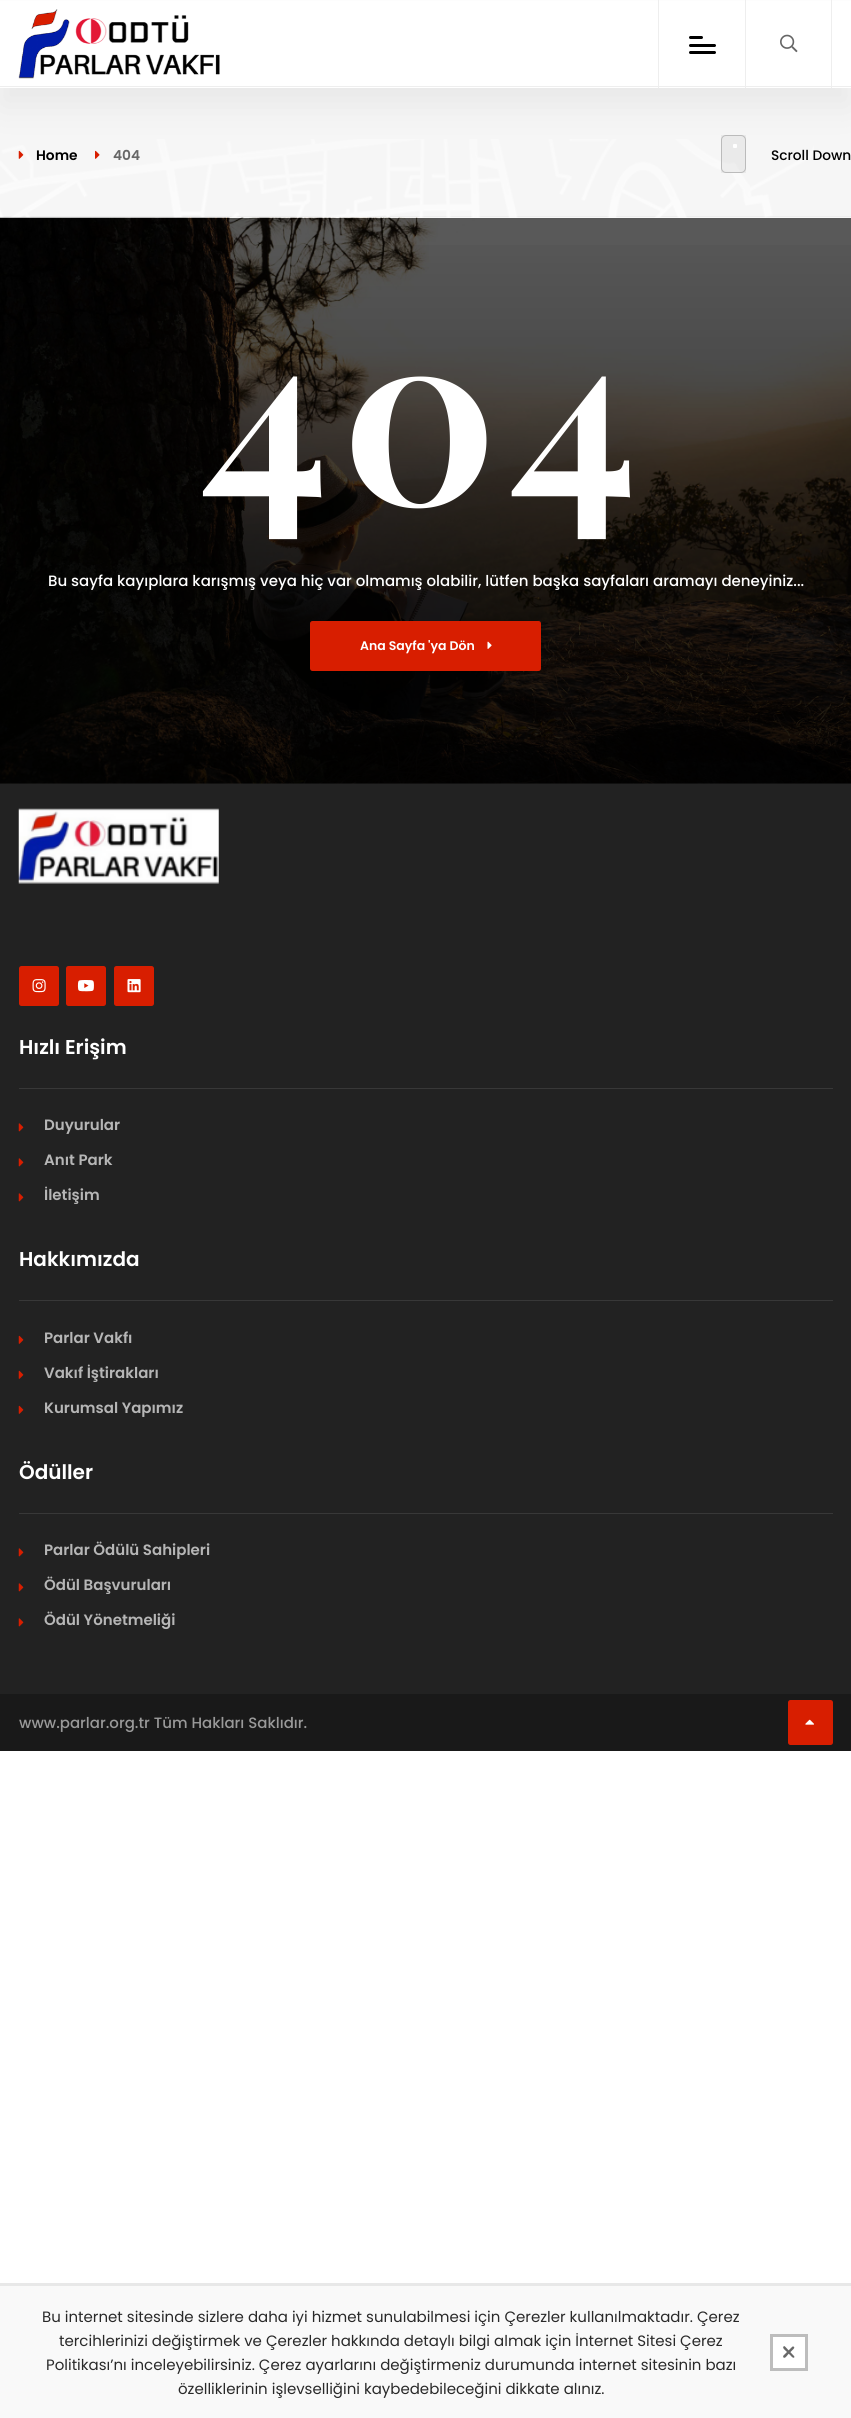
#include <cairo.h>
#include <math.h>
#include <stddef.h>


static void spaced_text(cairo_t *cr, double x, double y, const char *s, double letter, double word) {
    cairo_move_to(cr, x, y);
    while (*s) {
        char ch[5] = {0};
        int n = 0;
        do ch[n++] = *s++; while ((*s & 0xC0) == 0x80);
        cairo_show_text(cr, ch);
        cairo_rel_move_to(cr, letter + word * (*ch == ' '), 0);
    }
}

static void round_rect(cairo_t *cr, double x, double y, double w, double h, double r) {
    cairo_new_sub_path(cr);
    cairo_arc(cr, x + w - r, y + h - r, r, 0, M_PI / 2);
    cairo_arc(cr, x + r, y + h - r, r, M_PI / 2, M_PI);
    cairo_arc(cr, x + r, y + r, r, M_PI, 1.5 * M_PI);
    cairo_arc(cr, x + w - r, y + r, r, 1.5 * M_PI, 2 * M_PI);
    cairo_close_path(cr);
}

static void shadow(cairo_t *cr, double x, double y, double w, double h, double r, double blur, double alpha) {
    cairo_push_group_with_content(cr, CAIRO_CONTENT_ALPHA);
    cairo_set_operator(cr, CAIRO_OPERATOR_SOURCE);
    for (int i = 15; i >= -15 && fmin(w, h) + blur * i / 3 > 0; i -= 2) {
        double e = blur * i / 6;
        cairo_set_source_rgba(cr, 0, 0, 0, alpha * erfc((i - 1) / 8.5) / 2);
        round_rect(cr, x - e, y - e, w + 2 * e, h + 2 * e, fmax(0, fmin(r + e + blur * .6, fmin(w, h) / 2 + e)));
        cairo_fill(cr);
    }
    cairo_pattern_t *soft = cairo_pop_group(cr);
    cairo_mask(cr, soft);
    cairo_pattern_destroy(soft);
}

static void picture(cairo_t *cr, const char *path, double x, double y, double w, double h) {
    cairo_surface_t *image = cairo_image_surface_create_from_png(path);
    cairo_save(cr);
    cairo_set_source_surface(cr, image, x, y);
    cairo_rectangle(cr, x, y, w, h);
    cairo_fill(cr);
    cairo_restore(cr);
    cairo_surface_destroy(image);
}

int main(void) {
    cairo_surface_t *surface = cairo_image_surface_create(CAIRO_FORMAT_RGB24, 851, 2418);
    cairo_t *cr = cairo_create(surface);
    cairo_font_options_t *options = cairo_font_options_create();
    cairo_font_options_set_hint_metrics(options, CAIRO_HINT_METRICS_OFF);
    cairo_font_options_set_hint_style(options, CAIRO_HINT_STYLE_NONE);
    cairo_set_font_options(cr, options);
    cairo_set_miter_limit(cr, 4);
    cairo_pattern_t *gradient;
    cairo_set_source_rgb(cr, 1, 1, 1);
    cairo_paint(cr);
    cairo_set_source_rgb(cr, 0.349, 0.349, 0.349);
    cairo_rectangle(cr, 0, 783, 851, 1);
    cairo_fill(cr);
    cairo_set_source_rgb(cr, 0.961, 0.961, 0.961);
    cairo_rectangle(cr, 0, 88, 851, 130);
    cairo_fill(cr);
    cairo_set_source_rgb(cr, 0.933, 0.933, 0.933);
    cairo_rectangle(cr, 0, 216, 851, 1);
    cairo_fill(cr);
    picture(cr, "img3.png", 0, 139, 814, 79);
    picture(cr, "img4.png", 18, 150, 6, 9);
    picture(cr, "img5.png", 95, 150, 5, 9);
    cairo_set_source_rgba(cr, 0, 0, 0, 0.05);
    cairo_rectangle(cr, 721, 135, 25, 38);
    cairo_fill(cr);
    round_rect(cr, 721.5, 135.5, 24, 37, 4.5);
    cairo_set_source_rgb(cr, 0.733, 0.733, 0.733);
    cairo_set_line_width(cr, 1);
    cairo_stroke(cr);
    cairo_set_source_rgb(cr, 1, 1, 1);
    round_rect(cr, 733, 144, 4, 4, 1);
    cairo_fill(cr);
    cairo_set_source_rgb(cr, 0, 0, 0);
    shadow(cr, 0, 19, 851, 87, 0, 19, 0.06);
    cairo_set_source_rgb(cr, 1, 1, 1);
    cairo_rectangle(cr, 0, 1, 851, 87);
    cairo_fill(cr);
    cairo_set_source_rgb(cr, 0.933, 0.933, 0.933);
    cairo_rectangle(cr, 0, 86, 851, 1);
    cairo_fill(cr);
    picture(cr, "img1.png", 18, 9, 202, 70);
    cairo_rectangle(cr, 658, 0, 1, 88);
    cairo_fill(cr);
    cairo_set_source_rgb(cr, 0, 0, 0);
    round_rect(cr, 689, 36, 14, 3, 1.5);
    cairo_fill(cr);
    round_rect(cr, 689, 44, 27, 3, 1.5);
    cairo_fill(cr);
    round_rect(cr, 689, 51, 27, 3, 1.5);
    cairo_fill(cr);
    cairo_set_source_rgb(cr, 0.933, 0.933, 0.933);
    cairo_rectangle(cr, 831, 0, 1, 88);
    cairo_fill(cr);
    cairo_rectangle(cr, 745, 0, 1, 88);
    cairo_fill(cr);
    picture(cr, "img2.png", 780, 34, 18, 19);
    cairo_select_font_face(cr, "Poppins SemiBold", CAIRO_FONT_SLANT_NORMAL, CAIRO_FONT_WEIGHT_NORMAL);
    cairo_set_font_size(cr, 13.75);
    cairo_set_source_rgb(cr, 0, 0, 0);
    cairo_move_to(cr, 36, 160);
    cairo_show_text(cr, "Home");
    cairo_set_source_rgb(cr, 0.4, 0.4, 0.4);
    cairo_move_to(cr, 113, 160);
    cairo_show_text(cr, "404");
    cairo_select_font_face(cr, "Poppins Medium", CAIRO_FONT_SLANT_NORMAL, CAIRO_FONT_WEIGHT_NORMAL);
    cairo_set_source_rgb(cr, 0, 0, 0);
    cairo_move_to(cr, 771, 160);
    cairo_show_text(cr, "Scroll Down");
    picture(cr, "img6.png", 0, 217, 851, 567);
    gradient = cairo_pattern_create_linear(426, 217, 426, 784);
    cairo_pattern_add_color_stop_rgba(gradient, 0, 0, 0, 0, 0);
    cairo_pattern_add_color_stop_rgba(gradient, 1, 0, 0, 0, 0.6);
    cairo_set_source(cr, gradient);
    cairo_pattern_destroy(gradient);
    cairo_rectangle(cr, 0, 245, 851, 539);
    cairo_fill(cr);
    cairo_select_font_face(cr, "Playfair Display", CAIRO_FONT_SLANT_NORMAL, CAIRO_FONT_WEIGHT_BOLD);
    cairo_set_font_size(cr, 242);
    cairo_set_source_rgb(cr, 1, 1, 1);
    spaced_text(cr, 201, 505, "404", 12.5, 0);
    cairo_select_font_face(cr, "Poppins Medium", CAIRO_FONT_SLANT_NORMAL, CAIRO_FONT_WEIGHT_NORMAL);
    cairo_set_font_size(cr, 15);
    cairo_move_to(cr, 48, 586);
    cairo_show_text(cr, "Bu sayfa kayıplara karışmış veya hiç var olmamış olabilir, lütfen başka sayfaları aramayı deneyiniz...");
    cairo_set_source_rgb(cr, 0.847, 0.118, 0);
    round_rect(cr, 310, 621, 231, 50, 2.5);
    cairo_fill(cr);
    cairo_select_font_face(cr, "Poppins SemiBold", CAIRO_FONT_SLANT_NORMAL, CAIRO_FONT_WEIGHT_NORMAL);
    cairo_set_font_size(cr, 12.5);
    cairo_set_source_rgb(cr, 1, 1, 1);
    cairo_move_to(cr, 360, 650);
    cairo_show_text(cr, "Ana Sayfa 'ya Dön");
    picture(cr, "img7.png", 487, 641, 5, 8);
    cairo_set_source_rgb(cr, 0.133, 0.133, 0.133);
    cairo_rectangle(cr, 0, 784, 851, 910);
    cairo_fill(cr);
    picture(cr, "img8.png", 18, 808, 201, 76);
    cairo_set_source_rgb(cr, 0.847, 0.118, 0);
    round_rect(cr, 19, 966, 40, 40, 2.5);
    cairo_fill(cr);
    picture(cr, "img9.png", 32, 979, 14, 14);
    round_rect(cr, 66, 966, 40, 40, 2.5);
    cairo_fill(cr);
    picture(cr, "img10.png", 77, 980, 17, 12);
    round_rect(cr, 114, 966, 40, 40, 2.5);
    cairo_fill(cr);
    picture(cr, "img11.png", 127, 979, 14, 14);
    cairo_set_source_rgb(cr, 0.22, 0.22, 0.22);
    cairo_rectangle(cr, 19, 1088, 814, 1);
    cairo_fill(cr);
    cairo_set_font_size(cr, 20);
    cairo_set_source_rgb(cr, 1, 1, 1);
    cairo_move_to(cr, 19, 1054);
    cairo_show_text(cr, "Hızlı Erişim");
    picture(cr, "img12.png", 18, 1123, 6, 9);
    cairo_set_font_size(cr, 15);
    cairo_set_source_rgb(cr, 0.714, 0.714, 0.714);
    cairo_move_to(cr, 44, 1130);
    cairo_show_text(cr, "Duyurular");
    picture(cr, "img12.png", 18, 1158, 6, 9);
    cairo_move_to(cr, 44, 1165);
    cairo_show_text(cr, "Anıt Park");
    picture(cr, "img12.png", 18, 1193, 6, 9);
    cairo_move_to(cr, 44, 1200);
    cairo_show_text(cr, "İletişim");
    cairo_set_source_rgb(cr, 0.22, 0.22, 0.22);
    cairo_rectangle(cr, 19, 1300, 814, 1);
    cairo_fill(cr);
    cairo_set_font_size(cr, 20);
    cairo_set_source_rgb(cr, 1, 1, 1);
    cairo_move_to(cr, 19, 1266);
    cairo_show_text(cr, "Hakkımızda");
    picture(cr, "img13.png", 18, 1335, 6, 9);
    cairo_set_font_size(cr, 15);
    cairo_set_source_rgb(cr, 0.714, 0.714, 0.714);
    cairo_move_to(cr, 44, 1343);
    cairo_show_text(cr, "Parlar Vakfı");
    picture(cr, "img13.png", 18, 1370, 6, 9);
    cairo_move_to(cr, 44, 1378);
    cairo_show_text(cr, "Vakıf İştirakları");
    picture(cr, "img13.png", 18, 1405, 6, 9);
    cairo_move_to(cr, 44, 1413);
    cairo_show_text(cr, "Kurumsal Yapımız");
    cairo_set_source_rgb(cr, 0.22, 0.22, 0.22);
    cairo_rectangle(cr, 19, 1513, 814, 1);
    cairo_fill(cr);
    cairo_set_font_size(cr, 20);
    cairo_set_source_rgb(cr, 1, 1, 1);
    cairo_move_to(cr, 19, 1479);
    cairo_show_text(cr, "Ödüller");
    picture(cr, "img12.png", 18, 1548, 6, 9);
    cairo_set_font_size(cr, 15);
    cairo_set_source_rgb(cr, 0.714, 0.714, 0.714);
    cairo_move_to(cr, 44, 1555);
    cairo_show_text(cr, "Parlar Ödülü Sahipleri");
    picture(cr, "img12.png", 18, 1583, 6, 9);
    cairo_move_to(cr, 44, 1590);
    cairo_show_text(cr, "Ödül Başvuruları");
    picture(cr, "img12.png", 18, 1618, 6, 9);
    cairo_move_to(cr, 44, 1625);
    cairo_show_text(cr, "Ödül Yönetmeliği");
    cairo_set_source_rgb(cr, 0.098, 0.098, 0.098);
    cairo_rectangle(cr, 0, 1694, 851, 57);
    cairo_fill(cr);
    cairo_select_font_face(cr, "Poppins Medium", CAIRO_FONT_SLANT_NORMAL, CAIRO_FONT_WEIGHT_NORMAL);
    cairo_set_source_rgb(cr, 0.6, 0.6, 0.6);
    cairo_move_to(cr, 19, 1728);
    cairo_show_text(cr, "www.parlar.org.tr Tüm Hakları Saklıdır.");
    cairo_set_source_rgb(cr, 0.847, 0.118, 0);
    round_rect(cr, 788, 1700, 45, 45, 2.5);
    cairo_fill(cr);
    picture(cr, "img14.png", 805, 1719, 9, 6);
    cairo_set_source_rgb(cr, 0.973, 0.973, 0.973);
    cairo_rectangle(cr, 0, 2286, 851, 132);
    cairo_fill(cr);
    cairo_set_source_rgb(cr, 0.91, 0.91, 0.91);
    cairo_rectangle(cr, 0, 2283, 851, 3);
    cairo_fill(cr);
    cairo_select_font_face(cr, "Poppins", CAIRO_FONT_SLANT_NORMAL, CAIRO_FONT_WEIGHT_NORMAL);
    cairo_set_source_rgb(cr, 0.161, 0.161, 0.161);
    cairo_move_to(cr, 42, 2322);
    cairo_show_text(cr, "Bu internet sitesinde sizlere daha iyi hizmet sunulabilmesi için Çerezler kullanılmaktadır. Çerez");
    cairo_move_to(cr, 59, 2346);
    cairo_show_text(cr, "tercihlerinizi değiştirmek ve Çerezler hakkında detaylı bilgi almak için İnternet Sitesi Çerez");
    cairo_move_to(cr, 46, 2370);
    cairo_show_text(cr, "Politikası’nı inceleyebilirsiniz. Çerez ayarlarını değiştirmeniz durumunda internet sitesinin bazı");
    cairo_move_to(cr, 178, 2394);
    cairo_show_text(cr, "özelliklerinin işlevselliğini kaybedebileceğini dikkate alınız.");
    cairo_set_source_rgb(cr, 1, 1, 1);
    cairo_rectangle(cr, 771.5, 2335.5, 35, 34);
    cairo_fill_preserve(cr);
    cairo_set_source_rgb(cr, 0.741, 0.741, 0.741);
    cairo_set_line_width(cr, 3);
    cairo_stroke(cr);
    cairo_set_source_rgb(cr, 0.412, 0.412, 0.412);
    cairo_new_path(cr);
    cairo_move_to(cr, 785, 2346.5);
    cairo_line_to(cr, 794, 2356);
    cairo_line_to(cr, 794.5, 2357);
    cairo_curve_to(cr, 793.5, 2359, 791.5, 2356.5, 791, 2356);
    cairo_line_to(cr, 786.5, 2351.5);
    cairo_curve_to(cr, 785.5, 2350.5, 782, 2348, 783.5, 2346.5);
    cairo_curve_to(cr, 784, 2346, 784.5, 2346, 785, 2346.5);
    cairo_close_path(cr);
    cairo_fill(cr);
    cairo_new_path(cr);
    cairo_move_to(cr, 783.5, 2355.5);
    cairo_line_to(cr, 792.5, 2346.5);
    cairo_line_to(cr, 793.5, 2346.5);
    cairo_curve_to(cr, 795.5, 2347.5, 793, 2349.5, 792.5, 2350);
    cairo_line_to(cr, 788, 2354.5);
    cairo_curve_to(cr, 787.5, 2355, 785, 2359, 783.5, 2357.5);
    cairo_curve_to(cr, 783, 2357, 783, 2356, 783.5, 2355.5);
    cairo_close_path(cr);
    cairo_fill(cr);
    cairo_surface_write_to_png(surface, "page.png");
    cairo_font_options_destroy(options);
    cairo_destroy(cr);
    cairo_surface_destroy(surface);
    return 0;
}
